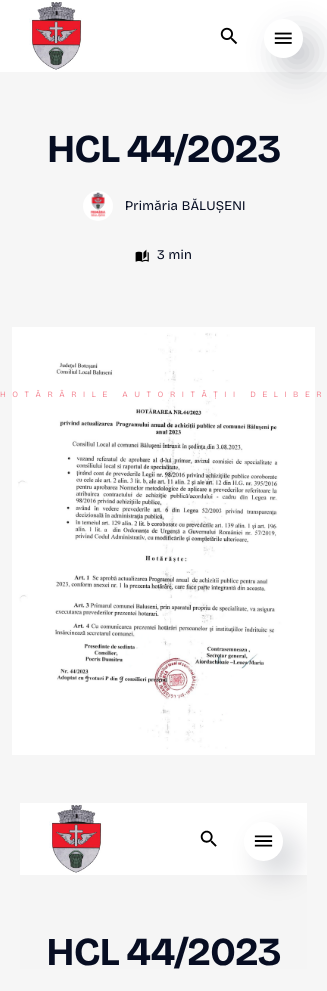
#include <cairo.h>
#include <math.h>
#include <stddef.h>


static void spaced_text(cairo_t *cr, double x, double y, const char *s, double letter, double word) {
    cairo_move_to(cr, x, y);
    while (*s) {
        char ch[5] = {0};
        int n = 0;
        do ch[n++] = *s++; while ((*s & 0xC0) == 0x80);
        cairo_show_text(cr, ch);
        cairo_rel_move_to(cr, letter + word * (*ch == ' '), 0);
    }
}

static void round_rect(cairo_t *cr, double x, double y, double w, double h, double r) {
    cairo_new_sub_path(cr);
    cairo_arc(cr, x + w - r, y + h - r, r, 0, M_PI / 2);
    cairo_arc(cr, x + r, y + h - r, r, M_PI / 2, M_PI);
    cairo_arc(cr, x + r, y + r, r, M_PI, 1.5 * M_PI);
    cairo_arc(cr, x + w - r, y + r, r, 1.5 * M_PI, 2 * M_PI);
    cairo_close_path(cr);
}

static void shadow(cairo_t *cr, double x, double y, double w, double h, double r, double blur, double alpha) {
    cairo_push_group_with_content(cr, CAIRO_CONTENT_ALPHA);
    cairo_set_operator(cr, CAIRO_OPERATOR_SOURCE);
    for (int i = 15; i >= -15 && fmin(w, h) + blur * i / 3 > 0; i -= 2) {
        double e = blur * i / 6;
        cairo_set_source_rgba(cr, 0, 0, 0, alpha * erfc((i - 1) / 8.5) / 2);
        round_rect(cr, x - e, y - e, w + 2 * e, h + 2 * e, fmax(0, fmin(r + e + blur * .6, fmin(w, h) / 2 + e)));
        cairo_fill(cr);
    }
    cairo_pattern_t *soft = cairo_pop_group(cr);
    cairo_mask(cr, soft);
    cairo_pattern_destroy(soft);
}

static void picture(cairo_t *cr, const char *path, double x, double y, double w, double h) {
    cairo_surface_t *image = cairo_image_surface_create_from_png(path);
    cairo_save(cr);
    cairo_set_source_surface(cr, image, x, y);
    cairo_rectangle(cr, x, y, w, h);
    cairo_fill(cr);
    cairo_restore(cr);
    cairo_surface_destroy(image);
}

int main(void) {
    cairo_surface_t *surface = cairo_image_surface_create(CAIRO_FORMAT_RGB24, 327, 991);
    cairo_t *cr = cairo_create(surface);
    cairo_font_options_t *options = cairo_font_options_create();
    cairo_font_options_set_hint_metrics(options, CAIRO_HINT_METRICS_OFF);
    cairo_font_options_set_hint_style(options, CAIRO_HINT_STYLE_NONE);
    cairo_set_font_options(cr, options);
    cairo_set_miter_limit(cr, 4);
    cairo_set_source_rgb(cr, 0.961, 0.961, 0.961);
    cairo_paint(cr);
    cairo_set_source_rgb(cr, 1, 1, 1);
    cairo_rectangle(cr, 0, 0, 327, 72);
    cairo_fill(cr);
    picture(cr, "img1.png", 29, 2, 53, 68);
    picture(cr, "img2.png", 220, 27, 18, 18);
    cairo_set_source_rgb(cr, 0.027, 0.051, 0.133);
    shadow(cr, 278, 33, 39, 39, 19.5, 15, 0.2);
    cairo_set_source_rgb(cr, 1, 1, 1);
    cairo_arc(cr, 283.5, 38.5, 19.5, 0, 2 * M_PI);
    cairo_fill(cr);
    picture(cr, "img3.png", 274, 32, 18, 12);
    cairo_select_font_face(cr, "Bricolage Grotesque", CAIRO_FONT_SLANT_NORMAL, CAIRO_FONT_WEIGHT_BOLD);
    cairo_set_font_size(cr, 39.5);
    cairo_set_source_rgb(cr, 0.027, 0.051, 0.133);
    spaced_text(cr, 47, 162, "HCL 44/2023", -1, 0);
    picture(cr, "img4.png", 83, 191, 30, 30);
    cairo_select_font_face(cr, "Bricolage Grotesque", CAIRO_FONT_SLANT_NORMAL, CAIRO_FONT_WEIGHT_NORMAL);
    cairo_set_font_size(cr, 13.25);
    spaced_text(cr, 125, 210, "Primăria BĂLUȘENI", 0.2, 0);
    picture(cr, "img5.png", 135, 249, 14, 13);
    spaced_text(cr, 157, 259, "3 min", 0.2, 0);
    picture(cr, "img6.png", 12, 327, 303, 428);
    cairo_set_font_size(cr, 8.2);
    cairo_set_source_rgb(cr, 0.957, 0.553, 0.6);
    spaced_text(cr, 0, 397, "HOTĂRÂRILE AUTORITĂȚII DELIBER", 6.55, 0);
    picture(cr, "img7.png", 20, 803, 287, 166);
    cairo_surface_write_to_png(surface, "page.png");
    cairo_font_options_destroy(options);
    cairo_destroy(cr);
    cairo_surface_destroy(surface);
    return 0;
}
